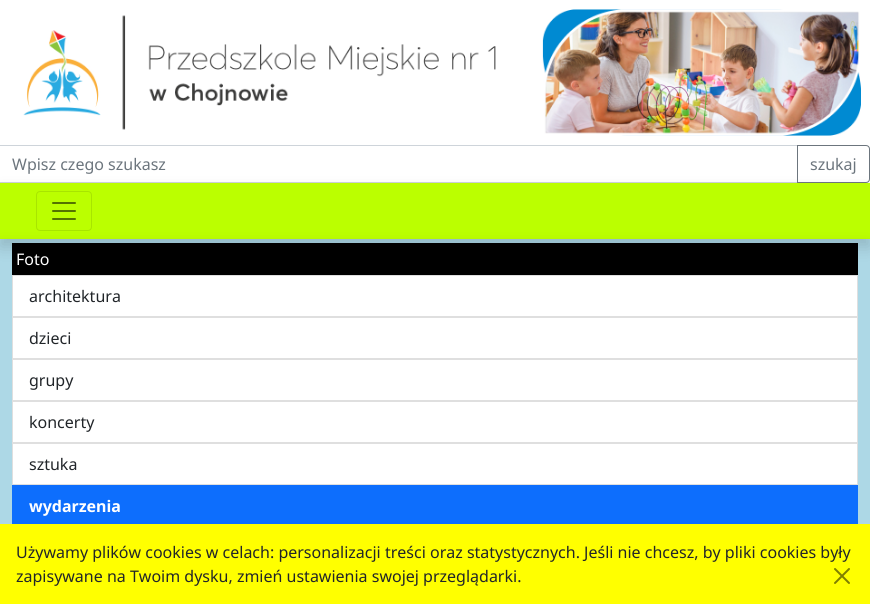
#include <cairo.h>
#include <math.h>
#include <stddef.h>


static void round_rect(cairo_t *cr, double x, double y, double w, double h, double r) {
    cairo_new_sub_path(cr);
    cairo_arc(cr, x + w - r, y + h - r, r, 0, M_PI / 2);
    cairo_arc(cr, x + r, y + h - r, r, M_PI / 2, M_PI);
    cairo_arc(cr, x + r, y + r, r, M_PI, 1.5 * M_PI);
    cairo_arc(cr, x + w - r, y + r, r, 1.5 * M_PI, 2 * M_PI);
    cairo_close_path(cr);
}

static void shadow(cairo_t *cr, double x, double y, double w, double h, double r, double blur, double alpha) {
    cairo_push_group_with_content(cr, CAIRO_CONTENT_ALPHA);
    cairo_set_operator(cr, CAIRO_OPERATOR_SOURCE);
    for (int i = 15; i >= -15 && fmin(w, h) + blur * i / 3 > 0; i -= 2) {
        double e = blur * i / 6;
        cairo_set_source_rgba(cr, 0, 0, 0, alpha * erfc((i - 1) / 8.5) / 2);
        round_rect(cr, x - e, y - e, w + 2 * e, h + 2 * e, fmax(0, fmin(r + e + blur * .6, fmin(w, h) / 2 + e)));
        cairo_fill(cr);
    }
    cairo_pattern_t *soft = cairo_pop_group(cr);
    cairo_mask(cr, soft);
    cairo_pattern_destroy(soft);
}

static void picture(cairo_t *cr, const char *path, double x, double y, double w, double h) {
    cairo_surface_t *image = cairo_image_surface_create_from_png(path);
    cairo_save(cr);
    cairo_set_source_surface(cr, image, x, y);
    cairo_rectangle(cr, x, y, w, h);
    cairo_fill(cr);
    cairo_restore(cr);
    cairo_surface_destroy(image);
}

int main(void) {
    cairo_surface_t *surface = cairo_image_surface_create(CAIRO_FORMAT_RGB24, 870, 604);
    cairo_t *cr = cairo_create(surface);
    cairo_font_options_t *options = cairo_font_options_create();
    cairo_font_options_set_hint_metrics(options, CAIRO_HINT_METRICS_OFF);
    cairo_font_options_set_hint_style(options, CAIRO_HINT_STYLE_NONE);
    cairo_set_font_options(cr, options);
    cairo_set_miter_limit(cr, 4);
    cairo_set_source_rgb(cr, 1, 1, 1);
    cairo_paint(cr);
    picture(cr, "img1.png", 23, 9, 838, 127);
    cairo_rectangle(cr, -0.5, 145.5, 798, 37);
    cairo_set_source_rgb(cr, 0.808, 0.831, 0.855);
    cairo_set_line_width(cr, 1);
    cairo_stroke(cr);
    cairo_select_font_face(cr, "Noto Sans", CAIRO_FONT_SLANT_NORMAL, CAIRO_FONT_WEIGHT_NORMAL);
    cairo_set_font_size(cr, 16);
    cairo_set_source_rgb(cr, 0.424, 0.459, 0.49);
    cairo_move_to(cr, 12, 170);
    cairo_show_text(cr, "Wpisz czego szukasz");
    cairo_set_source_rgb(cr, 0.733, 1, 0);
    cairo_rectangle(cr, 0, 183, 870, 56);
    cairo_fill(cr);
    cairo_set_source_rgb(cr, 0, 0, 0);
    shadow(cr, 0, 247, 870, 292, 0, 8, 0.15);
    cairo_set_source_rgb(cr, 0.678, 0.847, 0.902);
    cairo_rectangle(cr, 0, 239, 870, 285);
    cairo_fill(cr);
    cairo_set_source_rgb(cr, 0, 0, 0);
    cairo_rectangle(cr, 12, 243, 846, 32);
    cairo_fill(cr);
    cairo_save(cr);
    cairo_set_fill_rule(cr, CAIRO_FILL_RULE_EVEN_ODD);
    cairo_new_path(cr);
    cairo_move_to(cr, 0, 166);
    cairo_line_to(cr, 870, 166);
    cairo_line_to(cr, 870, 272);
    cairo_line_to(cr, 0, 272);
    cairo_close_path(cr);
    cairo_move_to(cr, 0, 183);
    cairo_line_to(cr, 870, 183);
    cairo_line_to(cr, 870, 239);
    cairo_line_to(cr, 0, 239);
    cairo_close_path(cr);
    cairo_clip(cr);
    cairo_set_source_rgb(cr, 0, 0, 0);
    shadow(cr, 0, 191, 870, 56, 0, 8, 0.15);
    cairo_restore(cr);
    cairo_new_path(cr);
    cairo_move_to(cr, 797.5, 145.5);
    cairo_line_to(cr, 866, 145.5);
    cairo_curve_to(cr, 868, 145.5, 869.5, 147, 869.5, 149);
    cairo_line_to(cr, 869.5, 179);
    cairo_curve_to(cr, 869.5, 181, 868, 182.5, 866, 182.5);
    cairo_line_to(cr, 797.5, 182.5);
    cairo_close_path(cr);
    cairo_set_source_rgb(cr, 0.424, 0.459, 0.49);
    cairo_stroke(cr);
    cairo_move_to(cr, 810, 170);
    cairo_show_text(cr, "szukaj");
    round_rect(cr, 36.5, 191.5, 55, 39, 3.5);
    cairo_set_source_rgb(cr, 0.659, 0.898, 0);
    cairo_stroke(cr);
    picture(cr, "img2.png", 52, 202, 24, 18);
    cairo_set_source_rgb(cr, 1, 1, 1);
    cairo_move_to(cr, 16, 265);
    cairo_show_text(cr, "Foto");
    cairo_rectangle(cr, 12.5, 275.5, 845, 41);
    cairo_fill_preserve(cr);
    cairo_set_source_rgb(cr, 0.875, 0.875, 0.875);
    cairo_stroke(cr);
    cairo_set_source_rgb(cr, 0.129, 0.145, 0.161);
    cairo_move_to(cr, 29, 302);
    cairo_show_text(cr, "architektura");
    cairo_set_source_rgb(cr, 1, 1, 1);
    cairo_rectangle(cr, 12.5, 317.5, 845, 41);
    cairo_fill_preserve(cr);
    cairo_set_source_rgb(cr, 0.875, 0.875, 0.875);
    cairo_stroke(cr);
    cairo_set_source_rgb(cr, 0.129, 0.145, 0.161);
    cairo_move_to(cr, 29, 344);
    cairo_show_text(cr, "dzieci");
    cairo_set_source_rgb(cr, 1, 1, 1);
    cairo_rectangle(cr, 12.5, 359.5, 845, 41);
    cairo_fill_preserve(cr);
    cairo_set_source_rgb(cr, 0.875, 0.875, 0.875);
    cairo_stroke(cr);
    cairo_set_source_rgb(cr, 0.129, 0.145, 0.161);
    cairo_move_to(cr, 29, 386);
    cairo_show_text(cr, "grupy");
    cairo_set_source_rgb(cr, 1, 1, 1);
    cairo_rectangle(cr, 12.5, 401.5, 845, 41);
    cairo_fill_preserve(cr);
    cairo_set_source_rgb(cr, 0.875, 0.875, 0.875);
    cairo_stroke(cr);
    cairo_set_source_rgb(cr, 0.129, 0.145, 0.161);
    cairo_move_to(cr, 29, 428);
    cairo_show_text(cr, "koncerty");
    cairo_set_source_rgb(cr, 1, 1, 1);
    cairo_rectangle(cr, 12.5, 443.5, 845, 41);
    cairo_fill_preserve(cr);
    cairo_set_source_rgb(cr, 0.875, 0.875, 0.875);
    cairo_stroke(cr);
    cairo_set_source_rgb(cr, 0.129, 0.145, 0.161);
    cairo_move_to(cr, 29, 470);
    cairo_show_text(cr, "sztuka");
    cairo_set_source_rgb(cr, 0.051, 0.431, 0.992);
    cairo_rectangle(cr, 12, 485, 846, 39);
    cairo_fill(cr);
    cairo_select_font_face(cr, "Noto Sans", CAIRO_FONT_SLANT_NORMAL, CAIRO_FONT_WEIGHT_BOLD);
    cairo_set_source_rgb(cr, 1, 1, 1);
    cairo_move_to(cr, 29, 512);
    cairo_show_text(cr, "wydarzenia");
    cairo_set_source_rgb(cr, 1, 1, 0);
    cairo_rectangle(cr, 0, 524, 870, 80);
    cairo_fill(cr);
    cairo_select_font_face(cr, "Noto Sans", CAIRO_FONT_SLANT_NORMAL, CAIRO_FONT_WEIGHT_NORMAL);
    cairo_set_source_rgb(cr, 0.129, 0.145, 0.161);
    cairo_move_to(cr, 16, 558);
    cairo_show_text(cr, "Używamy plików cookies w celach: personalizacji treści oraz statystycznych. Jeśli nie chcesz, by pliki cookies były");
    cairo_move_to(cr, 16, 582);
    cairo_show_text(cr, "zapisywane na Twoim dysku, zmień ustawienia swojej przeglądarki.");
    picture(cr, "img3.png", 834, 568, 16, 16);
    cairo_surface_write_to_png(surface, "page.png");
    cairo_font_options_destroy(options);
    cairo_destroy(cr);
    cairo_surface_destroy(surface);
    return 0;
}
